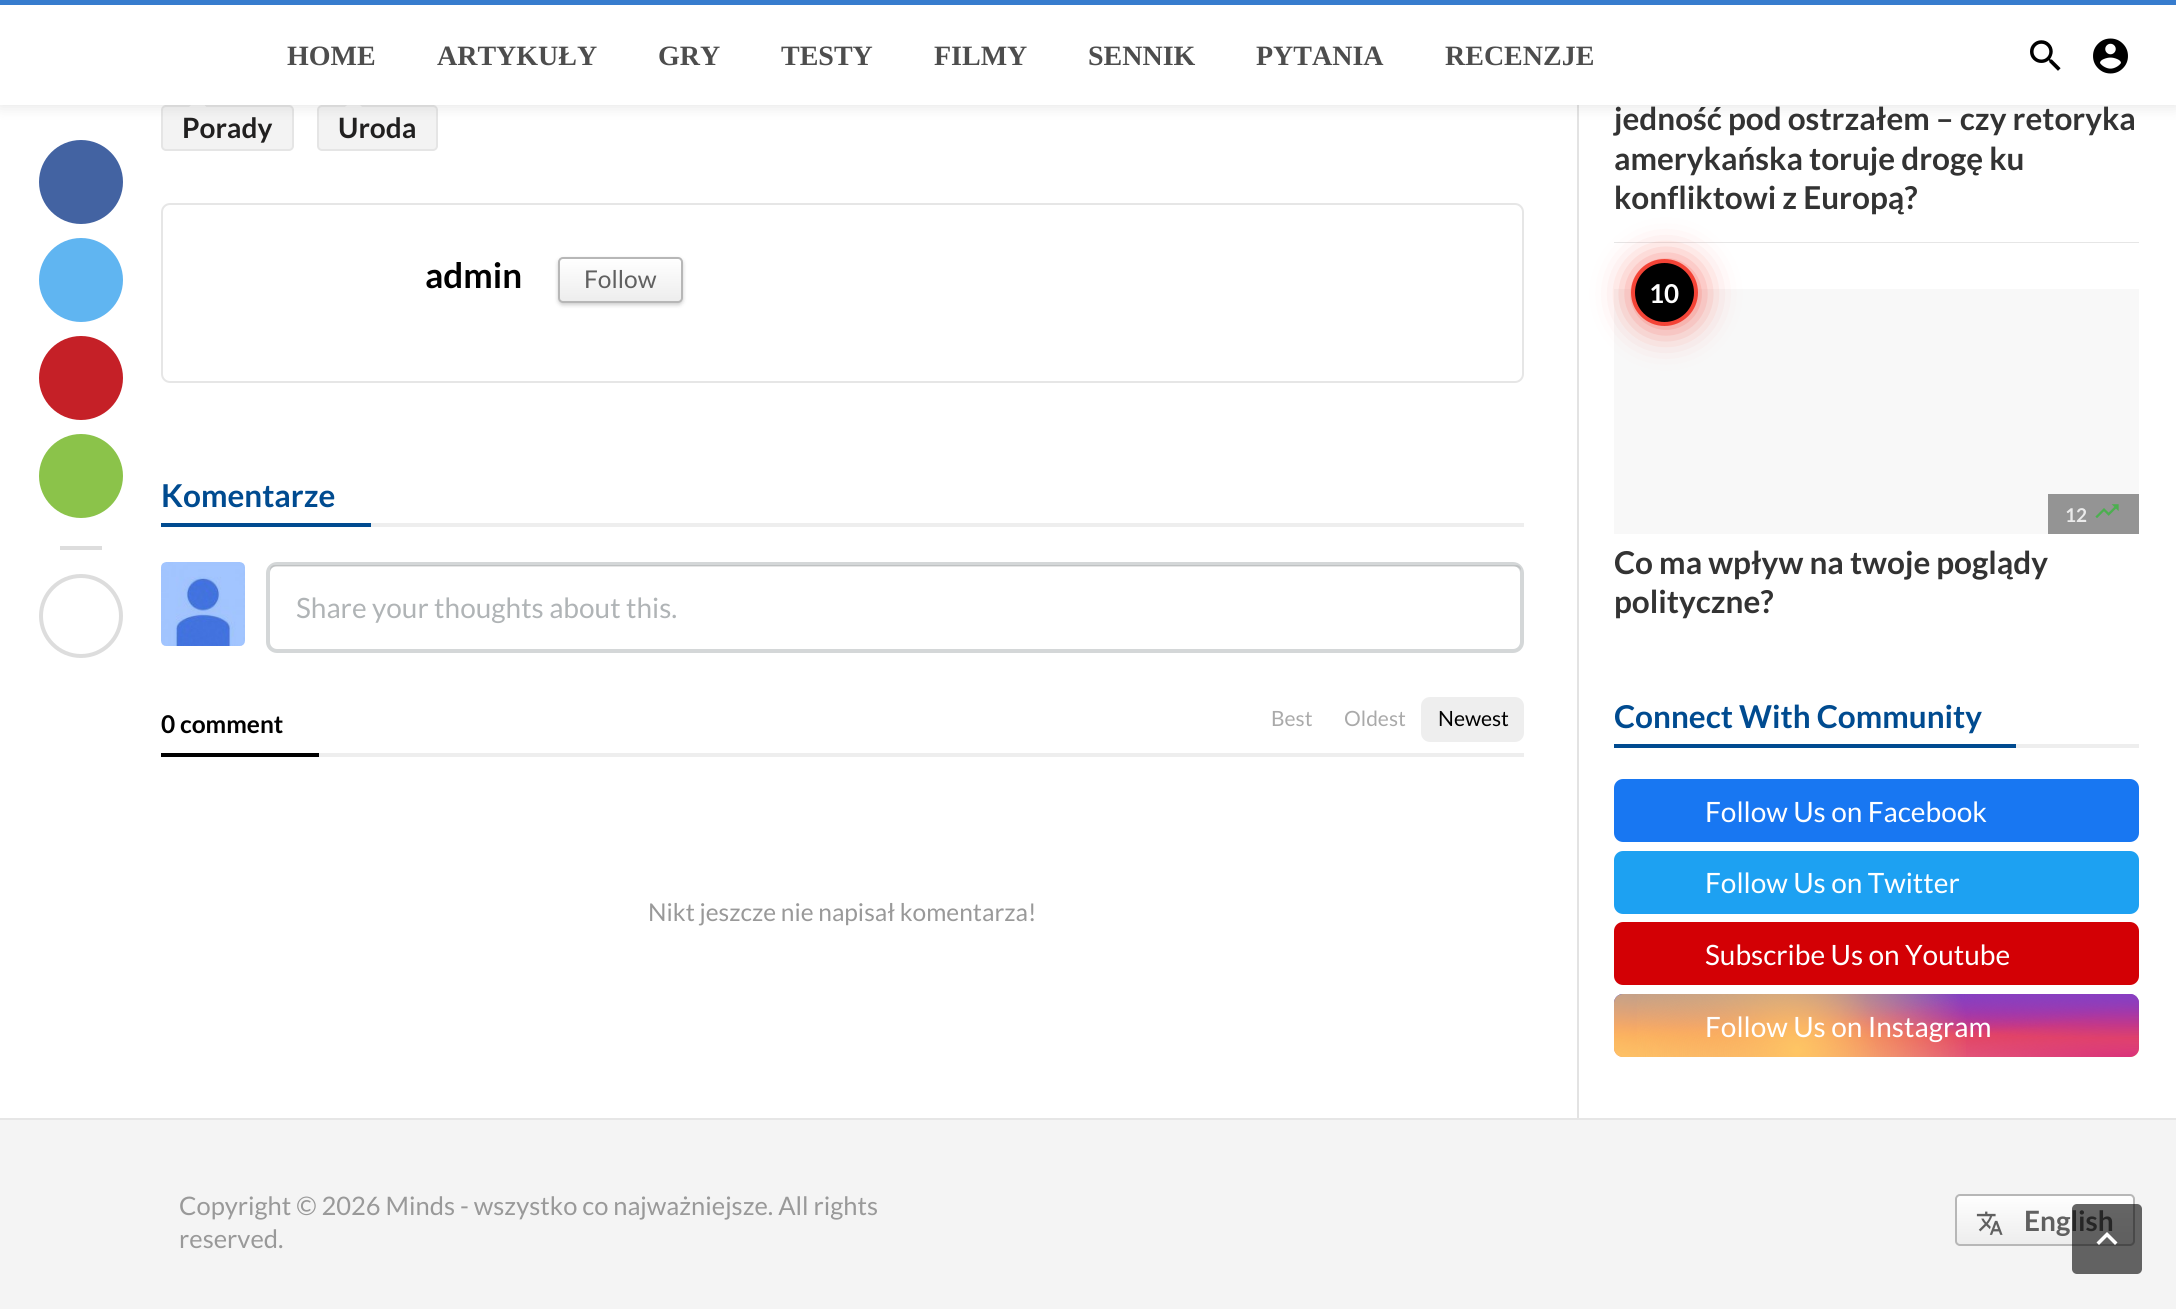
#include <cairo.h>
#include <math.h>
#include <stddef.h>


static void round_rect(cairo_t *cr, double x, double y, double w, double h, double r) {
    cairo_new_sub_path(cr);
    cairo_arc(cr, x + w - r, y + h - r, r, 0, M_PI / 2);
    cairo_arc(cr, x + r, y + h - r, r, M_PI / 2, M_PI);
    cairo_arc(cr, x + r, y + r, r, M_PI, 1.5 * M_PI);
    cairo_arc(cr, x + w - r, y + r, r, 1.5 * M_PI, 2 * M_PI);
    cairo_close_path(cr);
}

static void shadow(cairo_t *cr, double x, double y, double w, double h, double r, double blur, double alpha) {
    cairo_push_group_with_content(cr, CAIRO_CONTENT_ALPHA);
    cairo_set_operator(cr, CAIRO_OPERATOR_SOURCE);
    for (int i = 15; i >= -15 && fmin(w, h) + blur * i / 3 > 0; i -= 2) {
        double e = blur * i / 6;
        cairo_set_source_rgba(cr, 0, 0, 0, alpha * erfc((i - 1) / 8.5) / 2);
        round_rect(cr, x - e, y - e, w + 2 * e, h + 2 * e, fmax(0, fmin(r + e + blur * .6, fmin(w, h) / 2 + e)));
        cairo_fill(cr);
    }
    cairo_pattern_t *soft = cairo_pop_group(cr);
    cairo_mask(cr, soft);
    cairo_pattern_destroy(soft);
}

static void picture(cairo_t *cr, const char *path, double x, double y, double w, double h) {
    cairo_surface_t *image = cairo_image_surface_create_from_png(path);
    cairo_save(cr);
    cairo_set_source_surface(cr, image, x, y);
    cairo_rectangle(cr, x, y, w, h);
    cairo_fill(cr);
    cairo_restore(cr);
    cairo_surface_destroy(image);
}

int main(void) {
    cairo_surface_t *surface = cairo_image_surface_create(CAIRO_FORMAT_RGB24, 2176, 1309);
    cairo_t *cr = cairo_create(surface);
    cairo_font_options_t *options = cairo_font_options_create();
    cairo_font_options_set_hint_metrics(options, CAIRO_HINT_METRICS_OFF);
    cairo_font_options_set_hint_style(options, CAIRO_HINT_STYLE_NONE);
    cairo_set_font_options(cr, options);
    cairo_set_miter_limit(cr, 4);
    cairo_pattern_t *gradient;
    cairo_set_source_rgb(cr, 1, 1, 1);
    cairo_paint(cr);
    cairo_set_source_rgb(cr, 0.89, 0.89, 0.89);
    cairo_rectangle(cr, 1577, 105, 2, 1013);
    cairo_fill(cr);
    cairo_set_source_rgb(cr, 0.953, 0.953, 0.953);
    round_rect(cr, 162, 106, 131, 44, 4);
    cairo_fill_preserve(cr);
    cairo_set_source_rgb(cr, 0.898, 0.898, 0.898);
    cairo_stroke(cr);
    cairo_new_path(cr);
    cairo_move_to(cr, 208, 107);
    cairo_line_to(cr, 187, 107);
    cairo_line_to(cr, 198, 96);
    cairo_close_path(cr);
    cairo_fill(cr);
    cairo_set_source_rgb(cr, 0.953, 0.953, 0.953);
    cairo_new_path(cr);
    cairo_move_to(cr, 206.5, 107);
    cairo_line_to(cr, 189, 107);
    cairo_line_to(cr, 198, 98);
    cairo_close_path(cr);
    cairo_fill(cr);
    round_rect(cr, 318, 106, 119, 44, 4);
    cairo_fill_preserve(cr);
    cairo_set_source_rgb(cr, 0.898, 0.898, 0.898);
    cairo_stroke(cr);
    cairo_new_path(cr);
    cairo_move_to(cr, 364, 107);
    cairo_line_to(cr, 343, 107);
    cairo_line_to(cr, 353.5, 96);
    cairo_close_path(cr);
    cairo_fill(cr);
    cairo_set_source_rgb(cr, 0.953, 0.953, 0.953);
    cairo_new_path(cr);
    cairo_move_to(cr, 362, 107);
    cairo_line_to(cr, 345, 107);
    cairo_line_to(cr, 353.5, 98);
    cairo_close_path(cr);
    cairo_fill(cr);
    cairo_set_source_rgb(cr, 0, 0, 0);
    shadow(cr, 0, 2, 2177, 105, 0, 7, 0.1);
    cairo_set_source_rgb(cr, 1, 1, 1);
    cairo_rectangle(cr, 0, 5, 2176, 100);
    cairo_fill(cr);
    cairo_set_source_rgb(cr, 0.216, 0.486, 0.808);
    cairo_rectangle(cr, 0, 0, 2176, 5);
    cairo_fill(cr);
    cairo_select_font_face(cr, "Liberation Serif", CAIRO_FONT_SLANT_NORMAL, CAIRO_FONT_WEIGHT_BOLD);
    cairo_set_font_size(cr, 28);
    cairo_set_source_rgb(cr, 0.302, 0.302, 0.302);
    cairo_move_to(cr, 287, 65);
    cairo_show_text(cr, "HOME");
    cairo_move_to(cr, 437, 65);
    cairo_show_text(cr, "ARTYKUŁY");
    cairo_move_to(cr, 658, 65);
    cairo_show_text(cr, "GRY");
    cairo_move_to(cr, 781, 65);
    cairo_show_text(cr, "TESTY");
    cairo_move_to(cr, 934, 65);
    cairo_show_text(cr, "FILMY");
    cairo_move_to(cr, 1088, 65);
    cairo_show_text(cr, "SENNIK");
    cairo_move_to(cr, 1256, 65);
    cairo_show_text(cr, "PYTANIA");
    cairo_move_to(cr, 1445, 65);
    cairo_show_text(cr, "RECENZJE");
    picture(cr, "img1.png", 2030, 40, 31, 31);
    picture(cr, "img2.png", 2093, 38, 35, 36);
    cairo_set_source_rgb(cr, 0.263, 0.388, 0.635);
    cairo_arc(cr, 81, 182, 42, 0, 2 * M_PI);
    cairo_fill(cr);
    cairo_set_source_rgb(cr, 0.376, 0.71, 0.945);
    cairo_arc(cr, 81, 280, 42, 0, 2 * M_PI);
    cairo_fill(cr);
    cairo_set_source_rgb(cr, 0.773, 0.125, 0.153);
    cairo_arc(cr, 81, 378, 42, 0, 2 * M_PI);
    cairo_fill(cr);
    cairo_set_source_rgb(cr, 0.545, 0.765, 0.29);
    cairo_arc(cr, 81, 476, 42, 0, 2 * M_PI);
    cairo_fill(cr);
    cairo_set_source_rgb(cr, 0.867, 0.867, 0.867);
    cairo_rectangle(cr, 60, 546, 42, 4);
    cairo_fill(cr);
    cairo_arc(cr, 81, 616, 40, 0, 2 * M_PI);
    cairo_set_line_width(cr, 4);
    cairo_stroke(cr);
    cairo_select_font_face(cr, "Lato", CAIRO_FONT_SLANT_NORMAL, CAIRO_FONT_WEIGHT_BOLD);
    cairo_set_source_rgb(cr, 0.129, 0.125, 0.125);
    cairo_move_to(cr, 182, 138);
    cairo_show_text(cr, "Porady");
    cairo_move_to(cr, 338, 138);
    cairo_show_text(cr, "Uroda");
    round_rect(cr, 162, 204, 1361, 178, 8);
    cairo_set_source_rgb(cr, 0.902, 0.902, 0.902);
    cairo_set_line_width(cr, 2);
    cairo_stroke(cr);
    cairo_set_font_size(cr, 35);
    cairo_set_source_rgb(cr, 0, 0, 0);
    cairo_move_to(cr, 425, 288);
    cairo_show_text(cr, "admin");
    cairo_set_source_rgb(cr, 0, 0, 0);
    shadow(cr, 558, 259, 125, 46, 5, 2, 0.2);
    cairo_save(cr);
    round_rect(cr, 558, 257, 125, 46, 5);
    cairo_clip(cr);
    gradient = cairo_pattern_create_linear(620, 259, 620, 301);
    cairo_pattern_add_color_stop_rgba(gradient, 0, 1, 1, 1, 1);
    cairo_pattern_add_color_stop_rgba(gradient, 1, 0.929, 0.929, 0.929, 1);
    cairo_set_source(cr, gradient);
    cairo_pattern_destroy(gradient);
    cairo_rectangle(cr, 558, 259, 125, 42);
    cairo_fill(cr);
    cairo_restore(cr);
    round_rect(cr, 559, 258, 123, 44, 4);
    cairo_set_source_rgb(cr, 0.718, 0.718, 0.718);
    cairo_stroke(cr);
    cairo_select_font_face(cr, "Lato", CAIRO_FONT_SLANT_NORMAL, CAIRO_FONT_WEIGHT_NORMAL);
    cairo_set_font_size(cr, 24.5);
    cairo_set_source_rgb(cr, 0.376, 0.376, 0.376);
    cairo_move_to(cr, 584, 288);
    cairo_show_text(cr, "Follow");
    cairo_set_source_rgb(cr, 0.933, 0.933, 0.933);
    cairo_rectangle(cr, 371, 523, 1153, 4);
    cairo_fill(cr);
    cairo_set_source_rgb(cr, 0, 0.294, 0.565);
    cairo_rectangle(cr, 161, 523, 210, 4);
    cairo_fill(cr);
    cairo_select_font_face(cr, "Lato", CAIRO_FONT_SLANT_NORMAL, CAIRO_FONT_WEIGHT_BOLD);
    cairo_set_font_size(cr, 31.5);
    cairo_move_to(cr, 161, 507);
    cairo_show_text(cr, "Komentarze");
    picture(cr, "img3.png", 161, 562, 84, 84);
    round_rect(cr, 268, 564, 1254, 87, 9);
    cairo_set_source_rgb(cr, 0.831, 0.843, 0.847);
    cairo_set_line_width(cr, 4);
    cairo_stroke(cr);
    cairo_set_source_rgba(cr, 0, 0, 0, 0.1);
    cairo_new_path(cr);
    cairo_move_to(cr, 275, 567);
    cairo_line_to(cr, 1516, 567);
    cairo_curve_to(cr, 1518, 567, 1521, 569, 1521, 572);
    cairo_line_to(cr, 1521, 570);
    cairo_curve_to(cr, 1521, 567, 1519, 565, 1516, 565);
    cairo_line_to(cr, 275, 565);
    cairo_curve_to(cr, 272, 565, 270, 567, 270, 570);
    cairo_line_to(cr, 270, 572);
    cairo_curve_to(cr, 270, 569, 272, 567, 275, 567);
    cairo_close_path(cr);
    cairo_fill(cr);
    cairo_select_font_face(cr, "Lato", CAIRO_FONT_SLANT_NORMAL, CAIRO_FONT_WEIGHT_NORMAL);
    cairo_set_font_size(cr, 28);
    cairo_set_source_rgb(cr, 0.69, 0.706, 0.714);
    cairo_move_to(cr, 296, 618);
    cairo_show_text(cr, "Share your thoughts about this.");
    cairo_set_source_rgb(cr, 0.933, 0.933, 0.933);
    cairo_rectangle(cr, 319, 753, 1205, 4);
    cairo_fill(cr);
    cairo_set_source_rgb(cr, 0, 0, 0);
    cairo_rectangle(cr, 161, 753, 158, 4);
    cairo_fill(cr);
    cairo_select_font_face(cr, "Lato", CAIRO_FONT_SLANT_NORMAL, CAIRO_FONT_WEIGHT_BOLD);
    cairo_set_font_size(cr, 24.5);
    cairo_move_to(cr, 161, 733);
    cairo_show_text(cr, "0 comment");
    cairo_select_font_face(cr, "Lato", CAIRO_FONT_SLANT_NORMAL, CAIRO_FONT_WEIGHT_NORMAL);
    cairo_set_font_size(cr, 21);
    cairo_set_source_rgb(cr, 0.667, 0.667, 0.667);
    cairo_move_to(cr, 1271, 726);
    cairo_show_text(cr, "Best");
    cairo_move_to(cr, 1344, 726);
    cairo_show_text(cr, "Oldest");
    cairo_set_source_rgb(cr, 0.933, 0.933, 0.933);
    round_rect(cr, 1421, 697, 103, 45, 9);
    cairo_fill(cr);
    cairo_set_source_rgb(cr, 0, 0, 0);
    cairo_move_to(cr, 1438, 726);
    cairo_show_text(cr, "Newest");
    cairo_set_font_size(cr, 24.5);
    cairo_set_source_rgb(cr, 0.6, 0.6, 0.6);
    cairo_move_to(cr, 648, 921);
    cairo_show_text(cr, "Nikt jeszcze nie napisał komentarza!");
    cairo_set_source_rgb(cr, 0.902, 0.902, 0.902);
    cairo_rectangle(cr, 1614, 242, 525, 1);
    cairo_fill(cr);
    cairo_select_font_face(cr, "Lato", CAIRO_FONT_SLANT_NORMAL, CAIRO_FONT_WEIGHT_BOLD);
    cairo_set_font_size(cr, 31.5);
    cairo_set_source_rgb(cr, 0.2, 0.2, 0.2);
    cairo_move_to(cr, 1614, 130);
    cairo_show_text(cr, "jedność pod ostrzałem – czy retoryka");
    cairo_move_to(cr, 1614, 170);
    cairo_show_text(cr, "amerykańska toruje drogę ku");
    cairo_move_to(cr, 1614, 209);
    cairo_show_text(cr, "konfliktowi z Europą?");
    cairo_set_source_rgb(cr, 0.969, 0.969, 0.969);
    cairo_rectangle(cr, 1614, 289, 525, 245);
    cairo_fill(cr);
    cairo_set_source_rgb(cr, 0.957, 0.263, 0.212);
    shadow(cr, 1633, 261, 66, 66, 33, 17.5, 0.75);
    cairo_set_source_rgb(cr, 0, 0, 0);
    cairo_arc(cr, 1664.5, 292.5, 31.5, 0, 2 * M_PI);
    cairo_fill_preserve(cr);
    cairo_set_source_rgb(cr, 0.957, 0.263, 0.212);
    cairo_stroke(cr);
    cairo_set_font_size(cr, 26);
    cairo_set_source_rgb(cr, 1, 1, 1);
    cairo_move_to(cr, 1649, 303);
    cairo_show_text(cr, "10");
    cairo_set_source_rgb(cr, 0.58, 0.58, 0.58);
    cairo_rectangle(cr, 2048, 494, 91, 40);
    cairo_fill(cr);
    cairo_set_font_size(cr, 19);
    cairo_set_source_rgb(cr, 0.918, 0.918, 0.918);
    cairo_move_to(cr, 2065, 522);
    cairo_show_text(cr, "12");
    picture(cr, "img4.png", 2095, 504, 24, 14);
    cairo_set_font_size(cr, 31.5);
    cairo_set_source_rgb(cr, 0.2, 0.2, 0.2);
    cairo_move_to(cr, 1614, 574);
    cairo_show_text(cr, "Co ma wpływ na twoje poglądy");
    cairo_move_to(cr, 1614, 613);
    cairo_show_text(cr, "polityczne?");
    cairo_set_source_rgb(cr, 0.933, 0.933, 0.933);
    cairo_rectangle(cr, 2016, 744, 123, 4);
    cairo_fill(cr);
    cairo_set_source_rgb(cr, 0, 0.294, 0.565);
    cairo_rectangle(cr, 1614, 744, 402, 4);
    cairo_fill(cr);
    cairo_move_to(cr, 1614, 728);
    cairo_show_text(cr, "Connect With Community");
    cairo_set_source_rgb(cr, 0.094, 0.467, 0.949);
    round_rect(cr, 1614, 779, 525, 63, 9);
    cairo_fill(cr);
    cairo_select_font_face(cr, "Lato", CAIRO_FONT_SLANT_NORMAL, CAIRO_FONT_WEIGHT_NORMAL);
    cairo_set_font_size(cr, 28);
    cairo_set_source_rgb(cr, 1, 1, 1);
    cairo_move_to(cr, 1705, 822);
    cairo_show_text(cr, "Follow Us on Facebook");
    cairo_set_source_rgb(cr, 0.114, 0.631, 0.949);
    round_rect(cr, 1614, 851, 525, 63, 9);
    cairo_fill(cr);
    cairo_set_source_rgb(cr, 1, 1, 1);
    cairo_move_to(cr, 1705, 893);
    cairo_show_text(cr, "Follow Us on Twitter");
    cairo_set_source_rgb(cr, 0.827, 0, 0.02);
    round_rect(cr, 1614, 922, 525, 63, 9);
    cairo_fill(cr);
    cairo_set_source_rgb(cr, 1, 1, 1);
    cairo_move_to(cr, 1705, 965);
    cairo_show_text(cr, "Subscribe Us on Youtube");
    gradient = cairo_pattern_create_linear(1876, 994, 1876, 1057);
    cairo_pattern_add_color_stop_rgba(gradient, 0, 0.396, 0.349, 0.792, 1);
    cairo_pattern_add_color_stop_rgba(gradient, 0.3, 0.737, 0.192, 0.561, 1);
    cairo_pattern_add_color_stop_rgba(gradient, 0.5, 0.89, 0.247, 0.373, 1);
    cairo_pattern_add_color_stop_rgba(gradient, 0.7, 0.969, 0.463, 0.22, 1);
    cairo_pattern_add_color_stop_rgba(gradient, 1, 0.996, 0.776, 0.427, 1);
    cairo_set_source(cr, gradient);
    cairo_pattern_destroy(gradient);
    round_rect(cr, 1614, 994, 525, 63, 9);
    cairo_fill(cr);
    gradient = cairo_pattern_create_radial(0, 0, 0, 0, 0, 1);
    cairo_pattern_set_matrix(gradient, &(cairo_matrix_t){1.0 / 742, 0, 0, 1.0 / 89, -1.0 * 2139 / 742, -1.0 * 1057 / 89});
    cairo_pattern_add_color_stop_rgba(gradient, 0, 0.851, 0.192, 0.478, 1);
    cairo_pattern_add_color_stop_rgba(gradient, 1, 0.851, 0.192, 0.478, 0);
    cairo_set_source(cr, gradient);
    cairo_pattern_destroy(gradient);
    round_rect(cr, 1614, 994, 525, 63, 9);
    cairo_fill(cr);
    gradient = cairo_pattern_create_radial(0, 0, 0, 0, 0, 1);
    cairo_pattern_set_matrix(gradient, &(cairo_matrix_t){1.0 / 445, 0, 0, 1.0 / 107, -1.0 * 1929 / 445, -1.0 * 982 / 107});
    cairo_pattern_add_color_stop_rgba(gradient, 0, 0.537, 0.239, 0.761, 1);
    cairo_pattern_add_color_stop_rgba(gradient, 0.5, 0.537, 0.239, 0.761, 0);
    cairo_set_source(cr, gradient);
    cairo_pattern_destroy(gradient);
    cairo_rectangle(cr, 1736, 994, 401, 40);
    cairo_fill(cr);
    gradient = cairo_pattern_create_radial(0, 0, 0, 0, 0, 1);
    cairo_pattern_set_matrix(gradient, &(cairo_matrix_t){1.0 / 742, 0, 0, 1.0 / 89, -1.0 * 2139 / 742, -1.0 * 994 / 89});
    cairo_pattern_add_color_stop_rgba(gradient, 0, 0.537, 0.239, 0.761, 1);
    cairo_pattern_add_color_stop_rgba(gradient, 0.5, 0.537, 0.239, 0.761, 0);
    cairo_set_source(cr, gradient);
    cairo_pattern_destroy(gradient);
    round_rect(cr, 1614, 994, 525, 63, 9);
    cairo_fill(cr);
    gradient = cairo_pattern_create_radial(0, 0, 0, 0, 0, 1);
    cairo_pattern_set_matrix(gradient, &(cairo_matrix_t){1.0 / 594, 0, 0, 1.0 / 134, -1.0 * 1719 / 594, -1.0 * 963 / 134});
    cairo_pattern_add_color_stop_rgba(gradient, 0, 0.322, 0.345, 0.812, 1);
    cairo_pattern_add_color_stop_rgba(gradient, 0.5, 0.322, 0.345, 0.812, 0);
    cairo_set_source(cr, gradient);
    cairo_pattern_destroy(gradient);
    round_rect(cr, 1614, 994, 525, 63, 9);
    cairo_fill(cr);
    gradient = cairo_pattern_create_radial(0, 0, 0, 0, 0, 1);
    cairo_pattern_set_matrix(gradient, &(cairo_matrix_t){1.0 / 742, 0, 0, 1.0 / 111, -1.0 * 1614 / 742, -1.0 * 978 / 111});
    cairo_pattern_add_color_stop_rgba(gradient, 0, 0.322, 0.345, 0.812, 1);
    cairo_pattern_add_color_stop_rgba(gradient, 0.5, 0.322, 0.345, 0.812, 0);
    cairo_set_source(cr, gradient);
    cairo_pattern_destroy(gradient);
    round_rect(cr, 1614, 994, 525, 63, 9);
    cairo_fill(cr);
    gradient = cairo_pattern_create_radial(1614, 1082, 0, 1614, 1082, 532);
    cairo_pattern_add_color_stop_rgba(gradient, 0, 0.996, 0.773, 0.392, 1);
    cairo_pattern_add_color_stop_rgba(gradient, 0.5, 0.996, 0.773, 0.392, 0);
    cairo_set_source(cr, gradient);
    cairo_pattern_destroy(gradient);
    round_rect(cr, 1614, 994, 525, 63, 9);
    cairo_fill(cr);
    gradient = cairo_pattern_create_radial(1797, 1051, 0, 1797, 1051, 346);
    cairo_pattern_add_color_stop_rgba(gradient, 0, 0.996, 0.773, 0.392, 1);
    cairo_pattern_add_color_stop_rgba(gradient, 0.5, 0.996, 0.773, 0.392, 0);
    cairo_set_source(cr, gradient);
    cairo_pattern_destroy(gradient);
    cairo_rectangle(cr, 1637, 994, 329, 63);
    cairo_fill(cr);
    cairo_set_source_rgb(cr, 1, 1, 1);
    cairo_move_to(cr, 1705, 1037);
    cairo_show_text(cr, "Follow Us on Instagram");
    cairo_set_source_rgb(cr, 0.957, 0.957, 0.957);
    cairo_rectangle(cr, 0, 1120, 2176, 189);
    cairo_fill(cr);
    cairo_set_source_rgb(cr, 0.902, 0.902, 0.902);
    cairo_rectangle(cr, 0, 1118, 2176, 2);
    cairo_fill(cr);
    cairo_set_font_size(cr, 25.5);
    cairo_set_source_rgb(cr, 0.6, 0.6, 0.6);
    cairo_move_to(cr, 179, 1215);
    cairo_show_text(cr, "Copyright © 2026 Minds - wszystko co najważniejsze. All rights");
    cairo_move_to(cr, 179, 1248);
    cairo_show_text(cr, "reserved.");
    cairo_save(cr);
    round_rect(cr, 1955, 1194, 180, 52, 5);
    cairo_clip(cr);
    gradient = cairo_pattern_create_linear(2045, 1195, 2045, 1244);
    cairo_pattern_add_color_stop_rgba(gradient, 0, 1, 1, 1, 1);
    cairo_pattern_add_color_stop_rgba(gradient, 1, 0.929, 0.929, 0.929, 1);
    cairo_set_source(cr, gradient);
    cairo_pattern_destroy(gradient);
    cairo_rectangle(cr, 1955, 1195, 180, 49);
    cairo_fill(cr);
    cairo_restore(cr);
    round_rect(cr, 1956, 1195, 178, 50, 4);
    cairo_set_source_rgb(cr, 0.718, 0.718, 0.718);
    cairo_set_line_width(cr, 2);
    cairo_stroke(cr);
    picture(cr, "img5.png", 1976, 1211, 27, 24);
    cairo_select_font_face(cr, "Lato", CAIRO_FONT_SLANT_NORMAL, CAIRO_FONT_WEIGHT_BOLD);
    cairo_set_font_size(cr, 28);
    cairo_set_source_rgb(cr, 0.376, 0.376, 0.376);
    cairo_move_to(cr, 2024, 1231);
    cairo_show_text(cr, "English");
    cairo_set_source_rgba(cr, 0, 0, 0, 0.6);
    round_rect(cr, 2072, 1204, 70, 70, 5);
    cairo_fill(cr);
    cairo_set_source_rgb(cr, 1, 1, 1);
    cairo_new_path(cr);
    cairo_move_to(cr, 2099, 1245);
    cairo_line_to(cr, 2096.5, 1242.5);
    cairo_line_to(cr, 2107, 1232);
    cairo_line_to(cr, 2117.5, 1242.5);
    cairo_line_to(cr, 2115, 1245);
    cairo_line_to(cr, 2107, 1237);
    cairo_close_path(cr);
    cairo_fill(cr);
    cairo_surface_write_to_png(surface, "page.png");
    cairo_font_options_destroy(options);
    cairo_destroy(cr);
    cairo_surface_destroy(surface);
    return 0;
}
